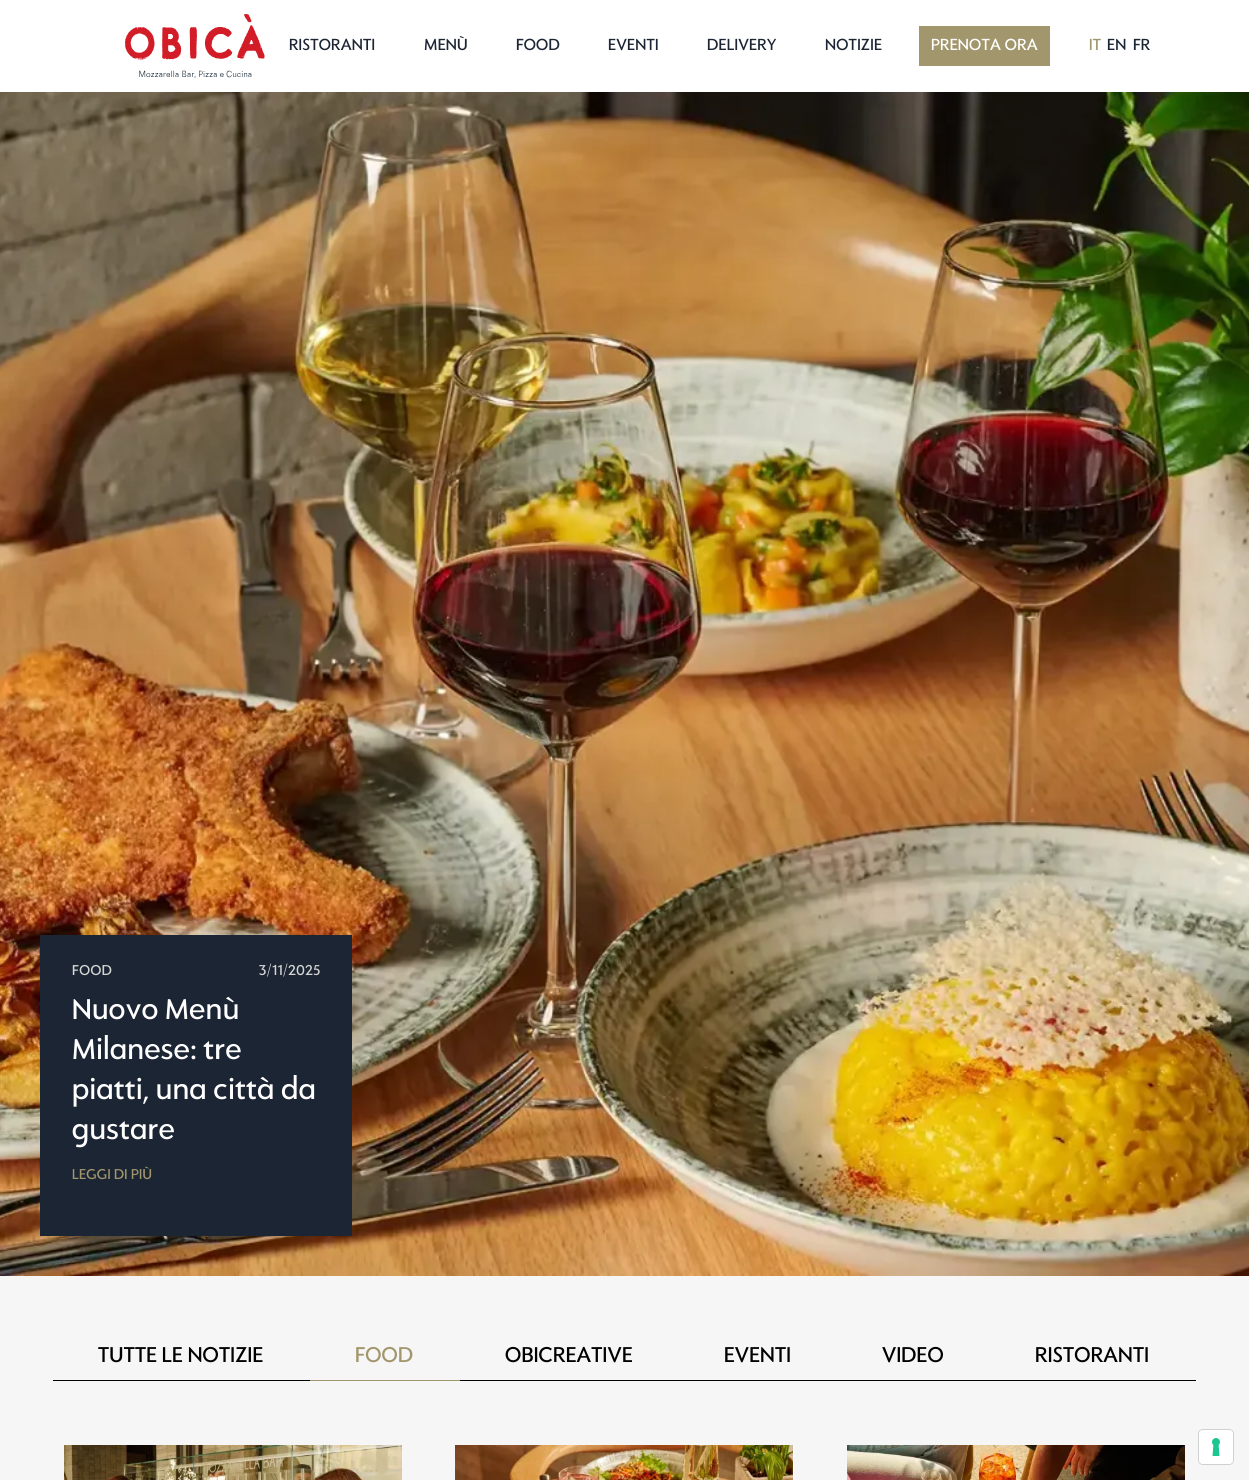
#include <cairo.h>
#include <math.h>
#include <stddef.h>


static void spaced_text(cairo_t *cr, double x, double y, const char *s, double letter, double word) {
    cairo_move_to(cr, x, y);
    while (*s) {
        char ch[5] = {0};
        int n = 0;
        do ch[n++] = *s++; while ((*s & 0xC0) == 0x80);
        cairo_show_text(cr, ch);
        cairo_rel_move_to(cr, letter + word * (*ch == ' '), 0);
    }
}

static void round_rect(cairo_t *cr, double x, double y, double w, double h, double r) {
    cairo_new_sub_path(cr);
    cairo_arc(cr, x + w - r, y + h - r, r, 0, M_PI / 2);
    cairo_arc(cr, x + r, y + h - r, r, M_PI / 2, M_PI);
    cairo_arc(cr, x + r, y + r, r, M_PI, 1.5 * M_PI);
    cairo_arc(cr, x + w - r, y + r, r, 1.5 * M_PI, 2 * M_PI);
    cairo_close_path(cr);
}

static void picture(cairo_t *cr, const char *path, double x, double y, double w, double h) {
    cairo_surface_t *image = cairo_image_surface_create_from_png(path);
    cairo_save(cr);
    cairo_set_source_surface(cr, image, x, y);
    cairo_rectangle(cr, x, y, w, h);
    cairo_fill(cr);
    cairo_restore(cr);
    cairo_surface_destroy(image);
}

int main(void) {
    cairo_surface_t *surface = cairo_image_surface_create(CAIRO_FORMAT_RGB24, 1249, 1480);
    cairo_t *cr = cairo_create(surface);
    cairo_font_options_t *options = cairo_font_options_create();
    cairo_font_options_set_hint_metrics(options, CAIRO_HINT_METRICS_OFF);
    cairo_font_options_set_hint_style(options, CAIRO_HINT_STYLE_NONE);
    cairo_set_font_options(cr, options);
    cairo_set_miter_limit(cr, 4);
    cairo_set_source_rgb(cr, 1, 1, 1);
    cairo_paint(cr);
    picture(cr, "img1.png", 125, 14, 140, 64);
    cairo_select_font_face(cr, "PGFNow", CAIRO_FONT_SLANT_NORMAL, CAIRO_FONT_WEIGHT_NORMAL);
    cairo_set_font_size(cr, 18);
    cairo_set_source_rgb(cr, 0.106, 0.145, 0.2);
    spaced_text(cr, 289, 50, "RISTORANTI", 0.25, 0);
    spaced_text(cr, 424, 50, "MENÙ", 0.25, 0);
    spaced_text(cr, 516, 50, "FOOD", 0.25, 0);
    spaced_text(cr, 608, 50, "EVENTI", 0.25, 0);
    spaced_text(cr, 707, 50, "DELIVERY", 0.25, 0);
    spaced_text(cr, 825, 50, "NOTIZIE", 0.25, 0);
    cairo_set_source_rgb(cr, 0.635, 0.588, 0.424);
    cairo_rectangle(cr, 919, 26, 131, 40);
    cairo_fill(cr);
    cairo_set_source_rgb(cr, 1, 1, 1);
    spaced_text(cr, 931, 50, "PRENOTA ORA", 0.25, 0);
    cairo_set_source_rgb(cr, 0.635, 0.588, 0.424);
    spaced_text(cr, 1089, 50, "IT", 0.25, 0);
    cairo_set_source_rgb(cr, 0.106, 0.145, 0.2);
    spaced_text(cr, 1107, 50, "EN", 0.25, 0);
    spaced_text(cr, 1133, 50, "FR", 0.25, 0);
    picture(cr, "img2.png", 0, 92, 1249, 1184);
    cairo_rectangle(cr, 40, 935, 312, 301);
    cairo_fill(cr);
    cairo_set_font_size(cr, 16);
    cairo_set_source_rgb(cr, 0.843, 0.839, 0.835);
    spaced_text(cr, 72, 975, "FOOD", 0.5, 0);
    spaced_text(cr, 259, 975, "3/11/2025", 0.5, 0);
    cairo_set_font_size(cr, 32);
    cairo_set_source_rgb(cr, 1, 1, 1);
    spaced_text(cr, 72, 1019, "Nuovo Menù", 0.5, 0);
    spaced_text(cr, 72, 1059, "Milanese: tre", 0.5, 0);
    spaced_text(cr, 72, 1099, "piatti, una città da", 0.5, 0);
    spaced_text(cr, 72, 1139, "gustare", 0.5, 0);
    cairo_set_font_size(cr, 16);
    cairo_set_source_rgb(cr, 0.635, 0.588, 0.424);
    spaced_text(cr, 72, 1179, "LEGGI DI PIÙ", 0.25, 0);
    cairo_set_source_rgb(cr, 0.961, 0.961, 0.961);
    cairo_rectangle(cr, 0, 1276, 1249, 204);
    cairo_fill(cr);
    cairo_set_source_rgb(cr, 0, 0, 0);
    cairo_rectangle(cr, 53, 1380, 257, 1);
    cairo_fill(cr);
    cairo_set_font_size(cr, 24);
    spaced_text(cr, 98, 1362, "TUTTE LE NOTIZIE", 0.25, 0);
    cairo_set_source_rgb(cr, 0.635, 0.588, 0.424);
    cairo_rectangle(cr, 310, 1380, 150, 1);
    cairo_fill(cr);
    spaced_text(cr, 355, 1362, "FOOD", 0.25, 0);
    cairo_set_source_rgb(cr, 0, 0, 0);
    cairo_rectangle(cr, 460, 1380, 736, 1);
    cairo_fill(cr);
    spaced_text(cr, 505, 1362, "OBICREATIVE", 0.25, 0);
    spaced_text(cr, 724, 1362, "EVENTI", 0.25, 0);
    spaced_text(cr, 882, 1362, "VIDEO", 0.25, 0);
    spaced_text(cr, 1035, 1362, "RISTORANTI", 0.25, 0);
    picture(cr, "img3.png", 64, 1445, 338, 35);
    cairo_set_source_rgb(cr, 1, 1, 1);
    cairo_rectangle(cr, 793, 1445, 1, 35);
    cairo_fill(cr);
    picture(cr, "img4.png", 455, 1445, 338, 35);
    picture(cr, "img5.png", 847, 1445, 338, 35);
    round_rect(cr, 1198.5, 1429.5, 35, 35, 4.5);
    cairo_set_source_rgb(cr, 0.816, 0.816, 0.816);
    cairo_set_line_width(cr, 1);
    cairo_stroke(cr);
    cairo_set_source_rgb(cr, 1, 1, 1);
    round_rect(cr, 1199, 1430, 34, 34, 4);
    cairo_fill(cr);
    picture(cr, "img6.png", 1212, 1438, 8, 18);
    cairo_surface_write_to_png(surface, "page.png");
    cairo_font_options_destroy(options);
    cairo_destroy(cr);
    cairo_surface_destroy(surface);
    return 0;
}
